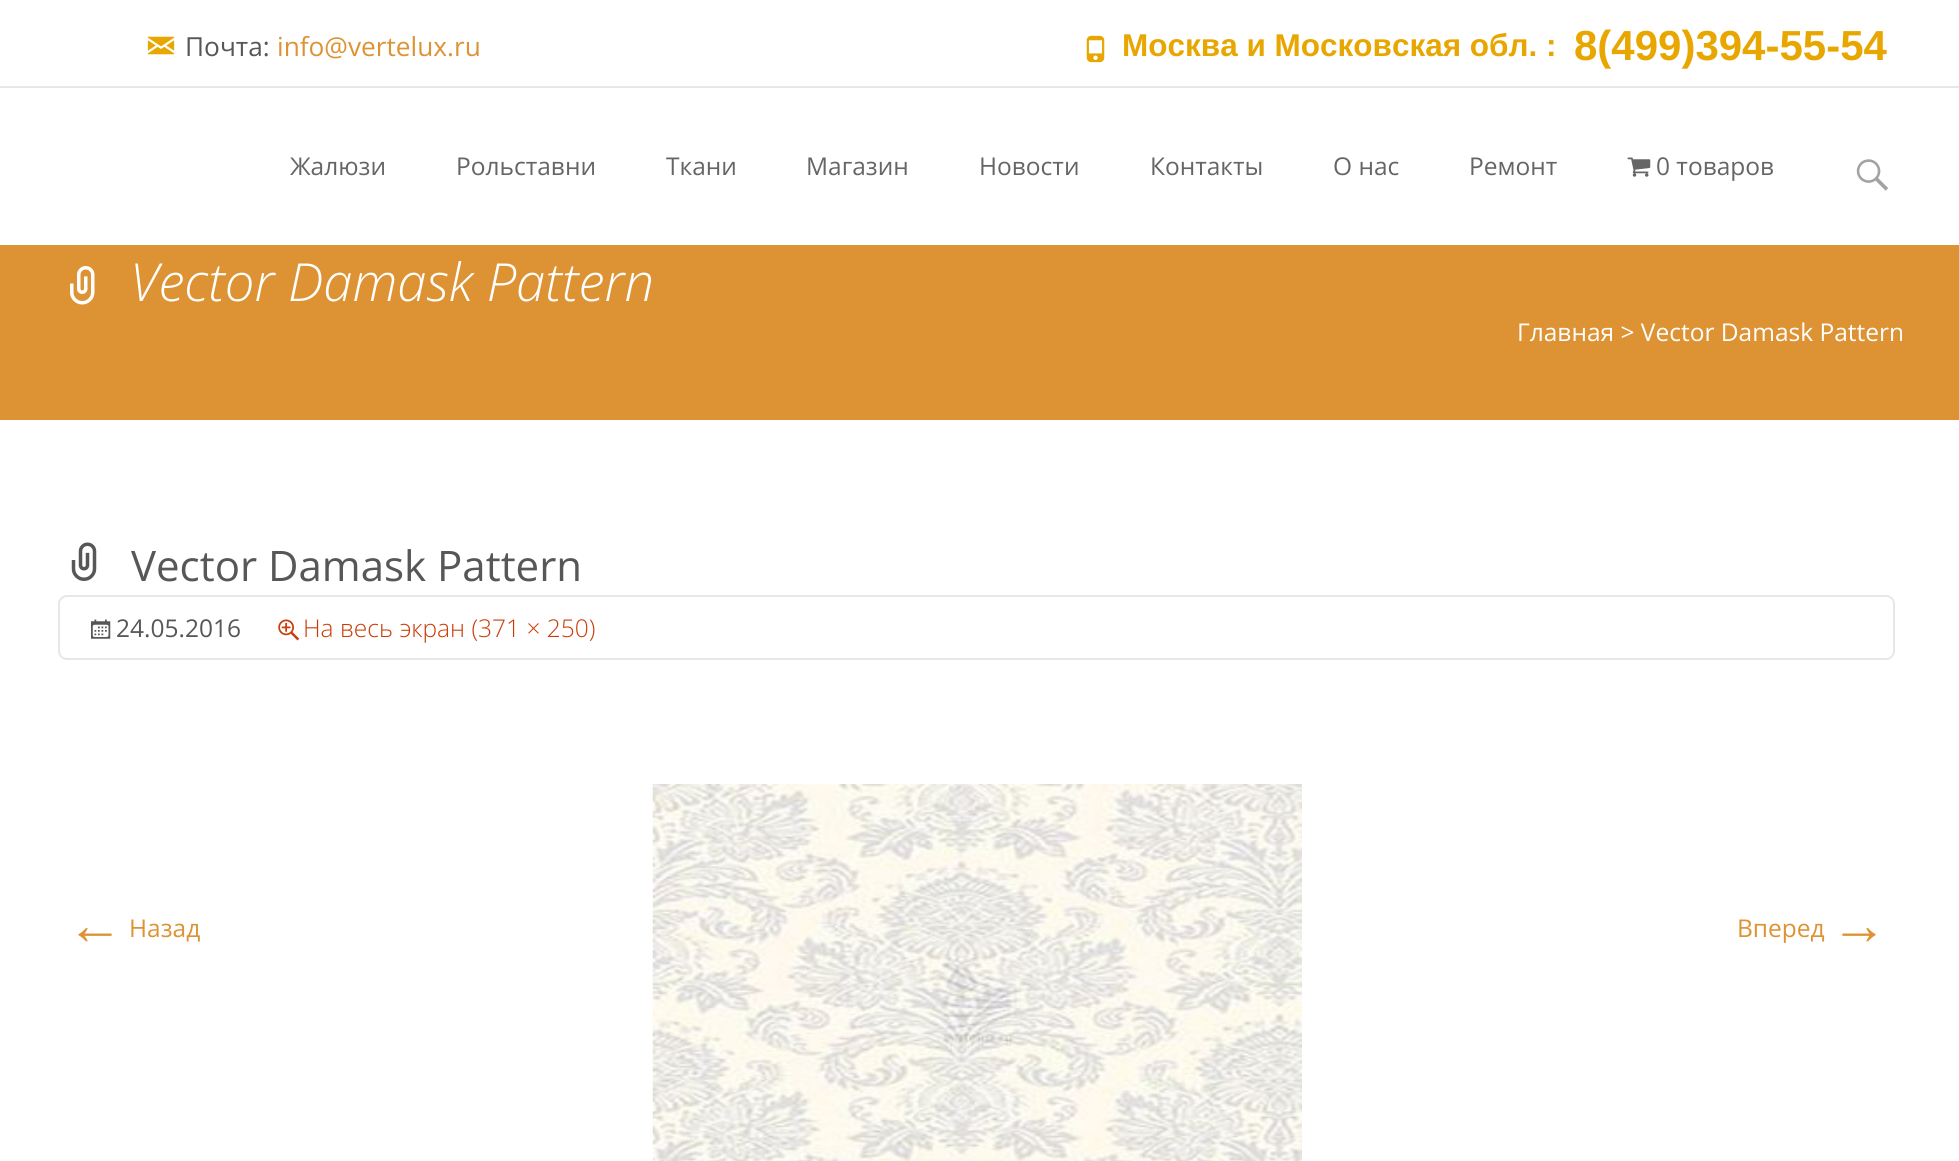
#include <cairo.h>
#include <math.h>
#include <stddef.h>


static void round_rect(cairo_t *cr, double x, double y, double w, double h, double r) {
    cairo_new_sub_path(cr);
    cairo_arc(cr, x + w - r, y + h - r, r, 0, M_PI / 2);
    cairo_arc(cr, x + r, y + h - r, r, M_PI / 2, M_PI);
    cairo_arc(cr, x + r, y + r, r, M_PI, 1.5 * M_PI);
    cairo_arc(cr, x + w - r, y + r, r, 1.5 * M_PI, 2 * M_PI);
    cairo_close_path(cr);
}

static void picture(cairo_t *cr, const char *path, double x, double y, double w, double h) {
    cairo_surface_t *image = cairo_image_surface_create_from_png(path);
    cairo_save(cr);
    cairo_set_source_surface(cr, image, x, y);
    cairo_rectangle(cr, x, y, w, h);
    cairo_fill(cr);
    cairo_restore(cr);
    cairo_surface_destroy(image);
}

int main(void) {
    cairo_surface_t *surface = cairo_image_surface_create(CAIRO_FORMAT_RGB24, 1959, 1161);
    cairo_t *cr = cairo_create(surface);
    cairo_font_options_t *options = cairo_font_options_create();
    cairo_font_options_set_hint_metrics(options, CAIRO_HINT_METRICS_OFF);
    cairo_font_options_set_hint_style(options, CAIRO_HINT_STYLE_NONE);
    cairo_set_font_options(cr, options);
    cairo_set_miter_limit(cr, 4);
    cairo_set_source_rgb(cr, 1, 1, 1);
    cairo_paint(cr);
    cairo_set_source_rgb(cr, 0.906, 0.906, 0.906);
    cairo_rectangle(cr, 0, 86, 1959, 2);
    cairo_fill(cr);
    picture(cr, "img1.png", 147, 36, 28, 19);
    cairo_select_font_face(cr, "Open Sans", CAIRO_FONT_SLANT_NORMAL, CAIRO_FONT_WEIGHT_NORMAL);
    cairo_set_font_size(cr, 26.25);
    cairo_set_source_rgb(cr, 0.341, 0.341, 0.341);
    cairo_move_to(cr, 185, 56);
    cairo_show_text(cr, "Почта:");
    cairo_set_source_rgb(cr, 0.867, 0.576, 0.2);
    cairo_move_to(cr, 277, 56);
    cairo_show_text(cr, "info@vertelux.ru");
    picture(cr, "img2.png", 1086, 35, 19, 28);
    cairo_select_font_face(cr, "Liberation Sans", CAIRO_FONT_SLANT_NORMAL, CAIRO_FONT_WEIGHT_BOLD);
    cairo_set_font_size(cr, 31.5);
    cairo_set_source_rgb(cr, 0.91, 0.651, 0);
    cairo_move_to(cr, 1122, 56);
    cairo_show_text(cr, "Москва и Московская обл. :");
    cairo_set_font_size(cr, 42);
    cairo_move_to(cr, 1574, 60);
    cairo_show_text(cr, "8(499)394-55-54");
    cairo_select_font_face(cr, "Open Sans", CAIRO_FONT_SLANT_NORMAL, CAIRO_FONT_WEIGHT_NORMAL);
    cairo_set_font_size(cr, 24.5);
    cairo_set_source_rgb(cr, 0.396, 0.396, 0.396);
    cairo_move_to(cr, 290, 175);
    cairo_show_text(cr, "Жалюзи");
    cairo_move_to(cr, 456, 175);
    cairo_show_text(cr, "Рольставни");
    cairo_move_to(cr, 666, 175);
    cairo_show_text(cr, "Ткани");
    cairo_move_to(cr, 806, 175);
    cairo_show_text(cr, "Магазин");
    cairo_move_to(cr, 979, 175);
    cairo_show_text(cr, "Новости");
    cairo_move_to(cr, 1150, 175);
    cairo_show_text(cr, "Контакты");
    cairo_move_to(cr, 1333, 175);
    cairo_show_text(cr, "О нас");
    cairo_move_to(cr, 1469, 175);
    cairo_show_text(cr, "Ремонт");
    picture(cr, "img3.png", 1627, 157, 24, 20);
    cairo_move_to(cr, 1656, 175);
    cairo_show_text(cr, "0 товаров");
    picture(cr, "img4.png", 1856, 159, 33, 32);
    cairo_set_source_rgb(cr, 0.867, 0.576, 0.2);
    cairo_rectangle(cr, 0, 245, 1959, 175);
    cairo_fill(cr);
    picture(cr, "img5.png", 70, 266, 25, 39);
    cairo_select_font_face(cr, "Open Sans Light", CAIRO_FONT_SLANT_ITALIC, CAIRO_FONT_WEIGHT_NORMAL);
    cairo_set_font_size(cr, 52.5);
    cairo_set_source_rgb(cr, 1, 1, 1);
    cairo_move_to(cr, 130, 301);
    cairo_show_text(cr, "Vector Damask Pattern");
    cairo_select_font_face(cr, "Open Sans", CAIRO_FONT_SLANT_NORMAL, CAIRO_FONT_WEIGHT_NORMAL);
    cairo_set_font_size(cr, 24.5);
    cairo_move_to(cr, 1517, 341);
    cairo_show_text(cr, "Главная > Vector Damask Pattern");
    picture(cr, "img6.png", 71, 542, 26, 39);
    cairo_set_font_size(cr, 42);
    cairo_set_source_rgb(cr, 0.341, 0.341, 0.341);
    cairo_move_to(cr, 131, 581);
    cairo_show_text(cr, "Vector Damask Pattern");
    round_rect(cr, 59, 596, 1835, 63, 8);
    cairo_set_source_rgb(cr, 0.906, 0.906, 0.906);
    cairo_stroke(cr);
    picture(cr, "img7.png", 91, 619, 20, 20);
    cairo_set_font_size(cr, 24.5);
    cairo_set_source_rgb(cr, 0.341, 0.341, 0.341);
    cairo_move_to(cr, 116, 637);
    cairo_show_text(cr, "24.05.2016");
    picture(cr, "img8.png", 278, 619, 22, 22);
    cairo_select_font_face(cr, "Open Sans Light", CAIRO_FONT_SLANT_NORMAL, CAIRO_FONT_WEIGHT_NORMAL);
    cairo_set_source_rgb(cr, 0.792, 0.235, 0.031);
    cairo_move_to(cr, 303, 637);
    cairo_show_text(cr, "На весь экран (371 × 250)");
    picture(cr, "img9.png", 652, 784, 650, 377);
    cairo_select_font_face(cr, "Liberation Sans", CAIRO_FONT_SLANT_NORMAL, CAIRO_FONT_WEIGHT_NORMAL);
    cairo_set_font_size(cr, 56);
    cairo_set_source_rgb(cr, 0.867, 0.576, 0.2);
    cairo_move_to(cr, 67, 944);
    cairo_show_text(cr, "←");
    cairo_select_font_face(cr, "Open Sans", CAIRO_FONT_SLANT_NORMAL, CAIRO_FONT_WEIGHT_NORMAL);
    cairo_set_font_size(cr, 24.5);
    cairo_move_to(cr, 129, 937);
    cairo_show_text(cr, "Назад");
    cairo_move_to(cr, 1737, 937);
    cairo_show_text(cr, "Вперед");
    cairo_select_font_face(cr, "Liberation Sans", CAIRO_FONT_SLANT_NORMAL, CAIRO_FONT_WEIGHT_NORMAL);
    cairo_set_font_size(cr, 56);
    cairo_move_to(cr, 1831, 944);
    cairo_show_text(cr, "→");
    cairo_surface_write_to_png(surface, "page.png");
    cairo_font_options_destroy(options);
    cairo_destroy(cr);
    cairo_surface_destroy(surface);
    return 0;
}
